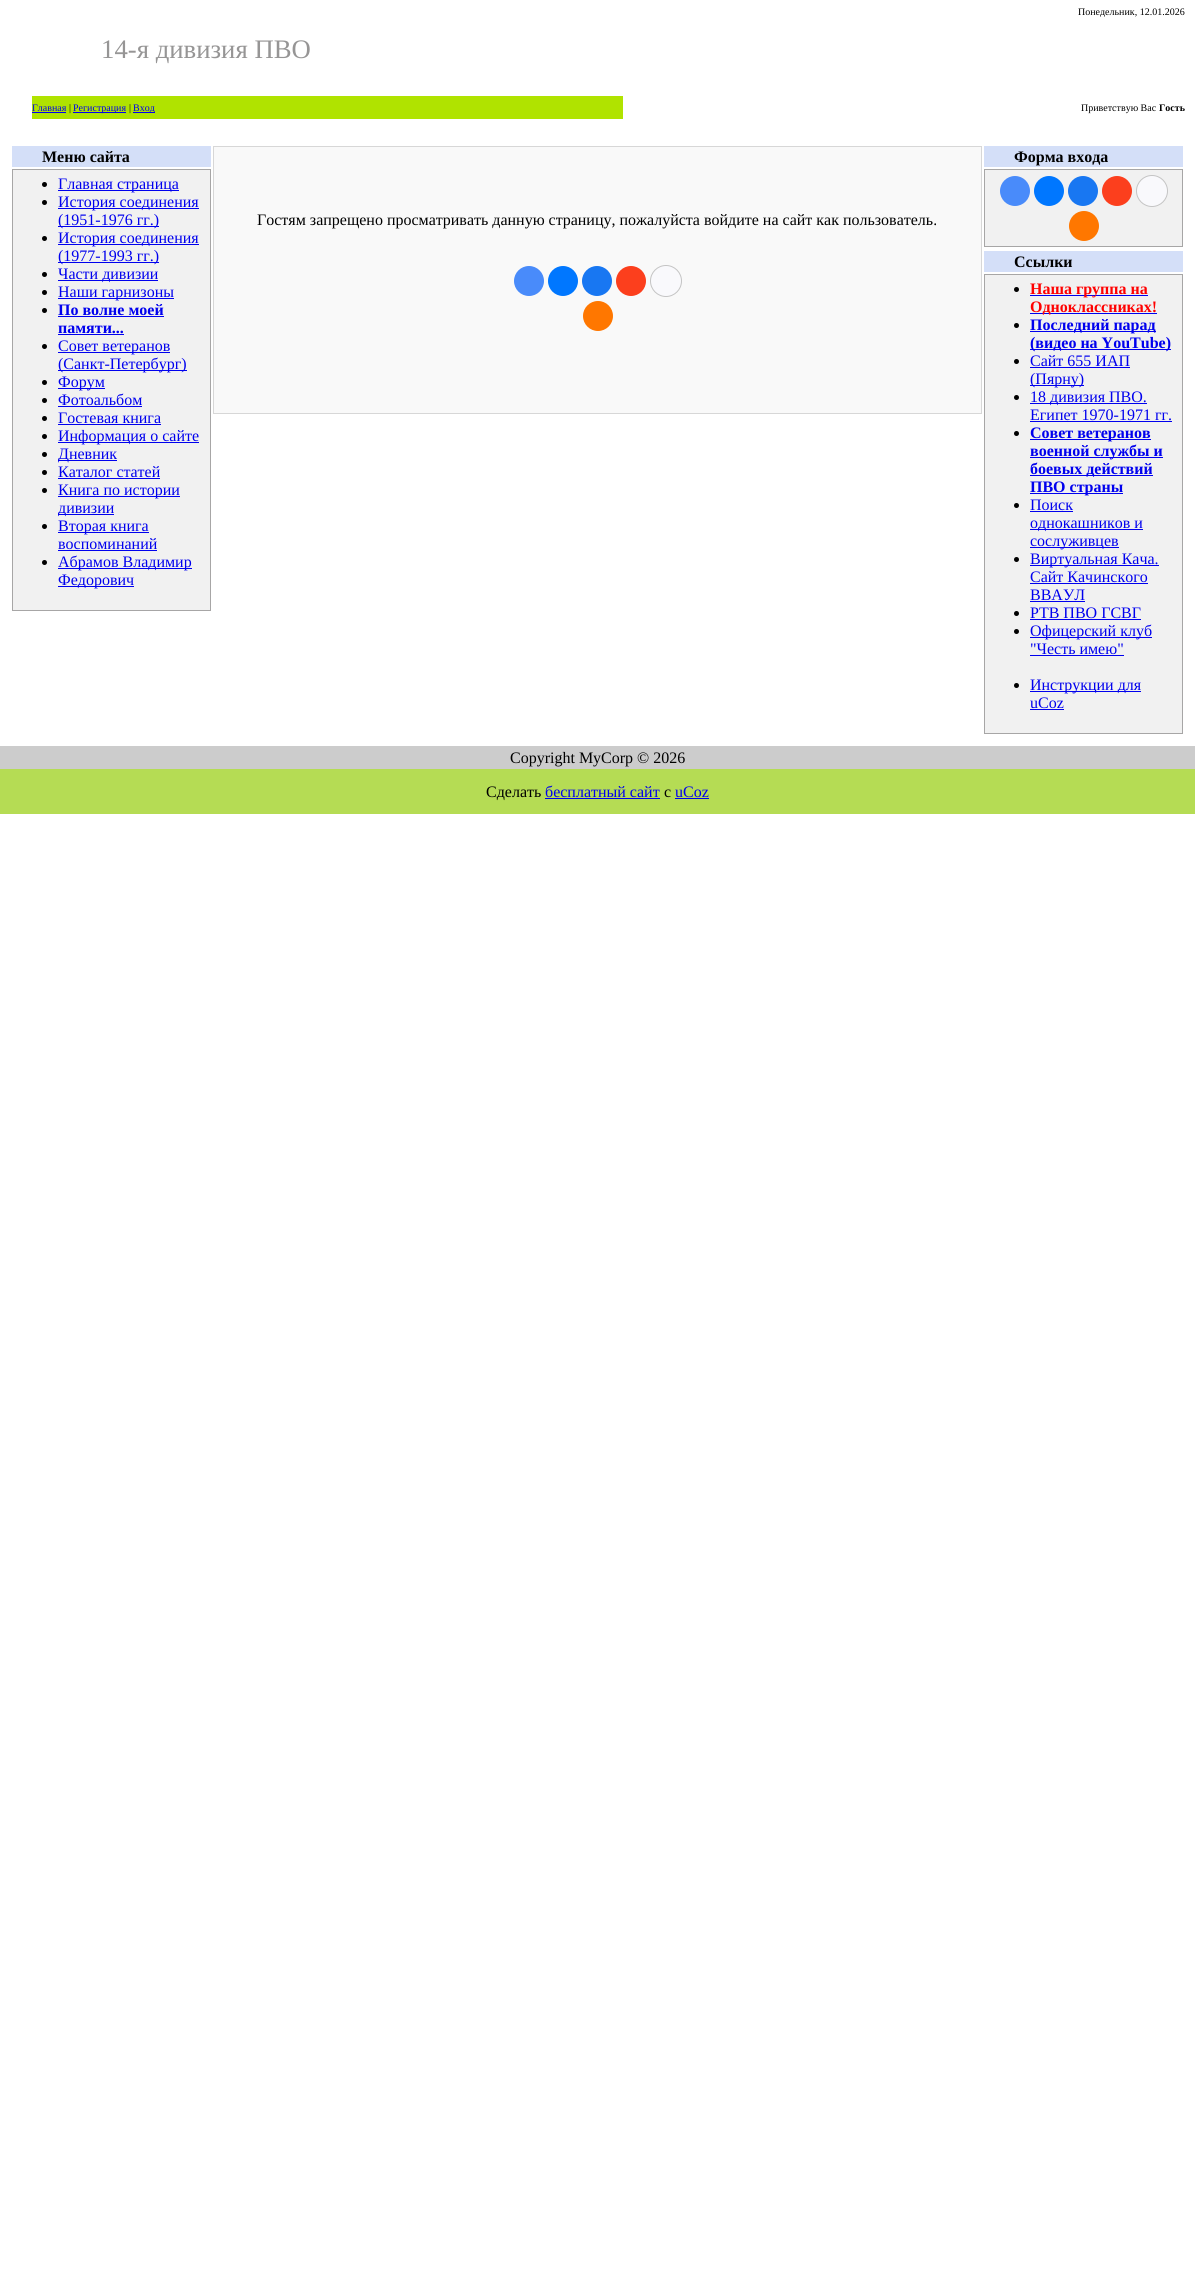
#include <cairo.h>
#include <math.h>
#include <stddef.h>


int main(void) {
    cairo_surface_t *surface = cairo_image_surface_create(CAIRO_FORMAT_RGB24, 1195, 2294);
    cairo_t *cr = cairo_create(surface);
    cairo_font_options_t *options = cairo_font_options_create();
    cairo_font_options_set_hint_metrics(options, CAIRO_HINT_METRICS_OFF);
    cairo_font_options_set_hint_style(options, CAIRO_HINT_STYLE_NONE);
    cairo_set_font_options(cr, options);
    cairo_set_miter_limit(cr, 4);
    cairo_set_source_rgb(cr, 1, 1, 1);
    cairo_paint(cr);
    cairo_select_font_face(cr, "Liberation Serif", CAIRO_FONT_SLANT_NORMAL, CAIRO_FONT_WEIGHT_NORMAL);
    cairo_set_font_size(cr, 10);
    cairo_set_source_rgb(cr, 0, 0, 0);
    cairo_move_to(cr, 1078, 15);
    cairo_show_text(cr, "Понедельник, 12.01.2026");
    cairo_set_font_size(cr, 26.75);
    cairo_set_source_rgb(cr, 0.588, 0.584, 0.584);
    cairo_move_to(cr, 101, 58);
    cairo_show_text(cr, "14-я дивизия ПВО");
    cairo_set_source_rgb(cr, 0.69, 0.89, 0);
    cairo_rectangle(cr, 32, 96, 591, 23);
    cairo_fill(cr);
    cairo_set_font_size(cr, 10);
    cairo_set_source_rgb(cr, 0, 0, 0.933);
    cairo_move_to(cr, 32, 111);
    cairo_show_text(cr, "Главная");
    cairo_rectangle(cr, 32, 112, 34, 1);
    cairo_fill(cr);
    cairo_set_source_rgb(cr, 0, 0, 0);
    cairo_move_to(cr, 69, 111);
    cairo_show_text(cr, "|");
    cairo_set_source_rgb(cr, 0, 0, 0.933);
    cairo_rectangle(cr, 73, 112, 53, 1);
    cairo_fill(cr);
    cairo_move_to(cr, 73, 111);
    cairo_show_text(cr, "Регистрация");
    cairo_set_source_rgb(cr, 0, 0, 0);
    cairo_move_to(cr, 129, 111);
    cairo_show_text(cr, "|");
    cairo_set_source_rgb(cr, 0, 0, 0.933);
    cairo_rectangle(cr, 133, 112, 22, 1);
    cairo_fill(cr);
    cairo_move_to(cr, 133, 111);
    cairo_show_text(cr, "Вход");
    cairo_set_source_rgb(cr, 0, 0, 0);
    cairo_move_to(cr, 1081, 111);
    cairo_show_text(cr, "Приветствую Вас");
    cairo_select_font_face(cr, "Liberation Serif", CAIRO_FONT_SLANT_NORMAL, CAIRO_FONT_WEIGHT_BOLD);
    cairo_move_to(cr, 1159, 111);
    cairo_show_text(cr, "Гость");
    cairo_set_source_rgb(cr, 0.831, 0.875, 0.969);
    cairo_rectangle(cr, 12, 146, 199, 21);
    cairo_fill(cr);
    cairo_set_font_size(cr, 16);
    cairo_set_source_rgb(cr, 0, 0, 0);
    cairo_move_to(cr, 42, 162);
    cairo_show_text(cr, "Меню сайта");
    cairo_set_source_rgb(cr, 0.945, 0.945, 0.945);
    cairo_rectangle(cr, 12.5, 169.5, 198, 441);
    cairo_fill_preserve(cr);
    cairo_set_source_rgb(cr, 0.655, 0.651, 0.651);
    cairo_set_line_width(cr, 1);
    cairo_stroke(cr);
    cairo_set_source_rgb(cr, 0, 0, 0);
    cairo_arc(cr, 44.5, 184.5, 2.5, 0, 2 * M_PI);
    cairo_fill(cr);
    cairo_set_source_rgb(cr, 0, 0, 0.933);
    cairo_rectangle(cr, 58, 190, 121, 1);
    cairo_fill(cr);
    cairo_select_font_face(cr, "Liberation Serif", CAIRO_FONT_SLANT_NORMAL, CAIRO_FONT_WEIGHT_NORMAL);
    cairo_move_to(cr, 58, 189);
    cairo_show_text(cr, "Главная страница");
    cairo_set_source_rgb(cr, 0, 0, 0);
    cairo_new_path(cr);
    cairo_arc(cr, 44.5, 202.5, 2.5, 0, 2 * M_PI);
    cairo_fill(cr);
    cairo_set_source_rgb(cr, 0, 0, 0.933);
    cairo_rectangle(cr, 58, 208, 141, 1);
    cairo_fill(cr);
    cairo_move_to(cr, 58, 207);
    cairo_show_text(cr, "История соединения");
    cairo_rectangle(cr, 58, 226, 101, 1);
    cairo_fill(cr);
    cairo_move_to(cr, 58, 225);
    cairo_show_text(cr, "(1951-1976 гг.)");
    cairo_set_source_rgb(cr, 0, 0, 0);
    cairo_new_path(cr);
    cairo_arc(cr, 44.5, 238.5, 2.5, 0, 2 * M_PI);
    cairo_fill(cr);
    cairo_set_source_rgb(cr, 0, 0, 0.933);
    cairo_rectangle(cr, 58, 244, 141, 1);
    cairo_fill(cr);
    cairo_move_to(cr, 58, 243);
    cairo_show_text(cr, "История соединения");
    cairo_rectangle(cr, 58, 262, 101, 1);
    cairo_fill(cr);
    cairo_move_to(cr, 58, 261);
    cairo_show_text(cr, "(1977-1993 гг.)");
    cairo_set_source_rgb(cr, 0, 0, 0);
    cairo_new_path(cr);
    cairo_arc(cr, 44.5, 274.5, 2.5, 0, 2 * M_PI);
    cairo_fill(cr);
    cairo_set_source_rgb(cr, 0, 0, 0.933);
    cairo_rectangle(cr, 58, 280, 100, 1);
    cairo_fill(cr);
    cairo_move_to(cr, 58, 279);
    cairo_show_text(cr, "Части дивизии");
    cairo_set_source_rgb(cr, 0, 0, 0);
    cairo_new_path(cr);
    cairo_arc(cr, 44.5, 292.5, 2.5, 0, 2 * M_PI);
    cairo_fill(cr);
    cairo_set_source_rgb(cr, 0, 0, 0.933);
    cairo_rectangle(cr, 58, 298, 116, 1);
    cairo_fill(cr);
    cairo_move_to(cr, 58, 297);
    cairo_show_text(cr, "Наши гарнизоны");
    cairo_set_source_rgb(cr, 0, 0, 0);
    cairo_new_path(cr);
    cairo_arc(cr, 44.5, 310.5, 2.5, 0, 2 * M_PI);
    cairo_fill(cr);
    cairo_select_font_face(cr, "Liberation Serif", CAIRO_FONT_SLANT_NORMAL, CAIRO_FONT_WEIGHT_BOLD);
    cairo_set_source_rgb(cr, 0, 0, 0.933);
    cairo_move_to(cr, 58, 315);
    cairo_show_text(cr, "По волне моей");
    cairo_rectangle(cr, 58, 316, 106, 1);
    cairo_fill(cr);
    cairo_move_to(cr, 58, 333);
    cairo_show_text(cr, "памяти...");
    cairo_rectangle(cr, 58, 334, 66, 1);
    cairo_fill(cr);
    cairo_set_source_rgb(cr, 0, 0, 0);
    cairo_arc(cr, 44.5, 346.5, 2.5, 0, 2 * M_PI);
    cairo_fill(cr);
    cairo_set_source_rgb(cr, 0, 0, 0.933);
    cairo_rectangle(cr, 58, 352, 112, 1);
    cairo_fill(cr);
    cairo_select_font_face(cr, "Liberation Serif", CAIRO_FONT_SLANT_NORMAL, CAIRO_FONT_WEIGHT_NORMAL);
    cairo_move_to(cr, 58, 351);
    cairo_show_text(cr, "Совет ветеранов");
    cairo_rectangle(cr, 58, 370, 129, 1);
    cairo_fill(cr);
    cairo_move_to(cr, 58, 369);
    cairo_show_text(cr, "(Санкт-Петербург)");
    cairo_set_source_rgb(cr, 0, 0, 0);
    cairo_new_path(cr);
    cairo_arc(cr, 44.5, 382.5, 2.5, 0, 2 * M_PI);
    cairo_fill(cr);
    cairo_set_source_rgb(cr, 0, 0, 0.933);
    cairo_rectangle(cr, 58, 388, 47, 1);
    cairo_fill(cr);
    cairo_move_to(cr, 58, 387);
    cairo_show_text(cr, "Форум");
    cairo_set_source_rgb(cr, 0, 0, 0);
    cairo_new_path(cr);
    cairo_arc(cr, 44.5, 400.5, 2.5, 0, 2 * M_PI);
    cairo_fill(cr);
    cairo_set_source_rgb(cr, 0, 0, 0.933);
    cairo_move_to(cr, 58, 405);
    cairo_show_text(cr, "Фотоальбом");
    cairo_rectangle(cr, 58, 406, 84, 1);
    cairo_fill(cr);
    cairo_set_source_rgb(cr, 0, 0, 0);
    cairo_arc(cr, 44.5, 418.5, 2.5, 0, 2 * M_PI);
    cairo_fill(cr);
    cairo_set_source_rgb(cr, 0, 0, 0.933);
    cairo_move_to(cr, 58, 423);
    cairo_show_text(cr, "Гостевая книга");
    cairo_rectangle(cr, 58, 424, 103, 1);
    cairo_fill(cr);
    cairo_set_source_rgb(cr, 0, 0, 0);
    cairo_arc(cr, 44.5, 436.5, 2.5, 0, 2 * M_PI);
    cairo_fill(cr);
    cairo_set_source_rgb(cr, 0, 0, 0.933);
    cairo_rectangle(cr, 58, 442, 141, 1);
    cairo_fill(cr);
    cairo_move_to(cr, 58, 441);
    cairo_show_text(cr, "Информация о сайте");
    cairo_set_source_rgb(cr, 0, 0, 0);
    cairo_new_path(cr);
    cairo_arc(cr, 44.5, 454.5, 2.5, 0, 2 * M_PI);
    cairo_fill(cr);
    cairo_set_source_rgb(cr, 0, 0, 0.933);
    cairo_rectangle(cr, 58, 460, 59, 1);
    cairo_fill(cr);
    cairo_move_to(cr, 58, 459);
    cairo_show_text(cr, "Дневник");
    cairo_set_source_rgb(cr, 0, 0, 0);
    cairo_new_path(cr);
    cairo_arc(cr, 44.5, 472.5, 2.5, 0, 2 * M_PI);
    cairo_fill(cr);
    cairo_set_source_rgb(cr, 0, 0, 0.933);
    cairo_move_to(cr, 58, 477);
    cairo_show_text(cr, "Каталог статей");
    cairo_rectangle(cr, 58, 478, 102, 1);
    cairo_fill(cr);
    cairo_set_source_rgb(cr, 0, 0, 0);
    cairo_arc(cr, 44.5, 490.5, 2.5, 0, 2 * M_PI);
    cairo_fill(cr);
    cairo_set_source_rgb(cr, 0, 0, 0.933);
    cairo_rectangle(cr, 58, 496, 122, 1);
    cairo_fill(cr);
    cairo_move_to(cr, 58, 495);
    cairo_show_text(cr, "Книга по истории");
    cairo_rectangle(cr, 58, 514, 56, 1);
    cairo_fill(cr);
    cairo_move_to(cr, 58, 513);
    cairo_show_text(cr, "дивизии");
    cairo_set_source_rgb(cr, 0, 0, 0);
    cairo_new_path(cr);
    cairo_arc(cr, 44.5, 526.5, 2.5, 0, 2 * M_PI);
    cairo_fill(cr);
    cairo_set_source_rgb(cr, 0, 0, 0.933);
    cairo_rectangle(cr, 58, 532, 91, 1);
    cairo_fill(cr);
    cairo_move_to(cr, 58, 531);
    cairo_show_text(cr, "Вторая книга");
    cairo_move_to(cr, 58, 549);
    cairo_show_text(cr, "воспоминаний");
    cairo_rectangle(cr, 58, 550, 99, 1);
    cairo_fill(cr);
    cairo_set_source_rgb(cr, 0, 0, 0);
    cairo_arc(cr, 44.5, 562.5, 2.5, 0, 2 * M_PI);
    cairo_fill(cr);
    cairo_set_source_rgb(cr, 0, 0, 0.933);
    cairo_rectangle(cr, 58, 568, 134, 1);
    cairo_fill(cr);
    cairo_move_to(cr, 58, 567);
    cairo_show_text(cr, "Абрамов Владимир");
    cairo_rectangle(cr, 58, 586, 76, 1);
    cairo_fill(cr);
    cairo_move_to(cr, 58, 585);
    cairo_show_text(cr, "Федорович");
    cairo_rectangle(cr, 213.5, 146.5, 768, 267);
    cairo_set_source_rgb(cr, 0.843, 0.843, 0.843);
    cairo_stroke(cr);
    cairo_set_source_rgb(cr, 0.973, 0.973, 0.973);
    cairo_rectangle(cr, 214, 147, 767, 266);
    cairo_fill(cr);
    cairo_set_source_rgb(cr, 0, 0, 0);
    cairo_move_to(cr, 257, 225);
    cairo_show_text(cr, "Гостям запрещено просматривать данную страницу, пожалуйста войдите на сайт как пользователь.");
    cairo_set_source_rgb(cr, 0.286, 0.545, 0.98);
    cairo_new_path(cr);
    cairo_arc(cr, 529, 281, 15, 0, 2 * M_PI);
    cairo_fill(cr);
    cairo_set_source_rgb(cr, 0, 0.467, 1);
    cairo_arc(cr, 563, 281, 15, 0, 2 * M_PI);
    cairo_fill(cr);
    cairo_set_source_rgb(cr, 0.094, 0.467, 0.949);
    cairo_arc(cr, 597, 281, 15, 0, 2 * M_PI);
    cairo_fill(cr);
    cairo_set_source_rgb(cr, 0.988, 0.247, 0.114);
    cairo_arc(cr, 631, 281, 15, 0, 2 * M_PI);
    cairo_fill(cr);
    cairo_set_source_rgb(cr, 0.973, 0.973, 0.988);
    cairo_arc(cr, 666, 281, 15.5, 0, 2 * M_PI);
    cairo_fill_preserve(cr);
    cairo_set_source_rgb(cr, 0.769, 0.769, 0.769);
    cairo_stroke(cr);
    cairo_set_source_rgb(cr, 1, 0.467, 0);
    cairo_arc(cr, 598, 316, 15, 0, 2 * M_PI);
    cairo_fill(cr);
    cairo_set_source_rgb(cr, 0.831, 0.875, 0.969);
    cairo_rectangle(cr, 984, 146, 199, 21);
    cairo_fill(cr);
    cairo_select_font_face(cr, "Liberation Serif", CAIRO_FONT_SLANT_NORMAL, CAIRO_FONT_WEIGHT_BOLD);
    cairo_set_source_rgb(cr, 0, 0, 0);
    cairo_move_to(cr, 1014, 162);
    cairo_show_text(cr, "Форма входа");
    cairo_set_source_rgb(cr, 0.945, 0.945, 0.945);
    cairo_rectangle(cr, 984.5, 169.5, 198, 77);
    cairo_fill_preserve(cr);
    cairo_set_source_rgb(cr, 0.655, 0.651, 0.651);
    cairo_stroke(cr);
    cairo_set_source_rgb(cr, 0.286, 0.545, 0.98);
    cairo_arc(cr, 1015, 191, 15, 0, 2 * M_PI);
    cairo_fill(cr);
    cairo_set_source_rgb(cr, 0, 0.467, 1);
    cairo_arc(cr, 1049, 191, 15, 0, 2 * M_PI);
    cairo_fill(cr);
    cairo_set_source_rgb(cr, 0.094, 0.467, 0.949);
    cairo_arc(cr, 1083, 191, 15, 0, 2 * M_PI);
    cairo_fill(cr);
    cairo_set_source_rgb(cr, 0.988, 0.247, 0.114);
    cairo_arc(cr, 1117, 191, 15, 0, 2 * M_PI);
    cairo_fill(cr);
    cairo_set_source_rgb(cr, 0.973, 0.973, 0.988);
    cairo_arc(cr, 1152, 191, 15.5, 0, 2 * M_PI);
    cairo_fill_preserve(cr);
    cairo_set_source_rgb(cr, 0.769, 0.769, 0.769);
    cairo_stroke(cr);
    cairo_set_source_rgb(cr, 1, 0.467, 0);
    cairo_arc(cr, 1084, 226, 15, 0, 2 * M_PI);
    cairo_fill(cr);
    cairo_set_source_rgb(cr, 0.831, 0.875, 0.969);
    cairo_rectangle(cr, 984, 251, 199, 21);
    cairo_fill(cr);
    cairo_set_source_rgb(cr, 0, 0, 0);
    cairo_move_to(cr, 1014, 267);
    cairo_show_text(cr, "Ссылки");
    cairo_set_source_rgb(cr, 0.945, 0.945, 0.945);
    cairo_rectangle(cr, 984.5, 274.5, 198, 459);
    cairo_fill_preserve(cr);
    cairo_set_source_rgb(cr, 0.655, 0.651, 0.651);
    cairo_stroke(cr);
    cairo_set_source_rgb(cr, 0, 0, 0);
    cairo_arc(cr, 1016.5, 289.5, 2.5, 0, 2 * M_PI);
    cairo_fill(cr);
    cairo_set_source_rgb(cr, 0, 0, 0.933);
    cairo_rectangle(cr, 1030, 295, 118, 1);
    cairo_fill(cr);
    cairo_set_source_rgb(cr, 1, 0, 0);
    cairo_move_to(cr, 1030, 294);
    cairo_show_text(cr, "Наша группа на");
    cairo_set_source_rgb(cr, 0, 0, 0.933);
    cairo_rectangle(cr, 1030, 313, 127, 1);
    cairo_fill(cr);
    cairo_set_source_rgb(cr, 1, 0, 0);
    cairo_move_to(cr, 1030, 312);
    cairo_show_text(cr, "Одноклассниках!");
    cairo_set_source_rgb(cr, 0, 0, 0);
    cairo_new_path(cr);
    cairo_arc(cr, 1016.5, 325.5, 2.5, 0, 2 * M_PI);
    cairo_fill(cr);
    cairo_set_source_rgb(cr, 0, 0, 0.933);
    cairo_rectangle(cr, 1030, 331, 126, 1);
    cairo_fill(cr);
    cairo_move_to(cr, 1030, 330);
    cairo_show_text(cr, "Последний парад");
    cairo_rectangle(cr, 1030, 349, 141, 1);
    cairo_fill(cr);
    cairo_move_to(cr, 1030, 348);
    cairo_show_text(cr, "(видео на YouTube)");
    cairo_set_source_rgb(cr, 0, 0, 0);
    cairo_new_path(cr);
    cairo_arc(cr, 1016.5, 361.5, 2.5, 0, 2 * M_PI);
    cairo_fill(cr);
    cairo_select_font_face(cr, "Liberation Serif", CAIRO_FONT_SLANT_NORMAL, CAIRO_FONT_WEIGHT_NORMAL);
    cairo_set_source_rgb(cr, 0, 0, 0.933);
    cairo_move_to(cr, 1030, 366);
    cairo_show_text(cr, "Сайт 655 ИАП");
    cairo_rectangle(cr, 1030, 367, 100, 1);
    cairo_fill(cr);
    cairo_rectangle(cr, 1030, 385, 54, 1);
    cairo_fill(cr);
    cairo_move_to(cr, 1030, 384);
    cairo_show_text(cr, "(Пярну)");
    cairo_set_source_rgb(cr, 0, 0, 0);
    cairo_new_path(cr);
    cairo_arc(cr, 1016.5, 397.5, 2.5, 0, 2 * M_PI);
    cairo_fill(cr);
    cairo_set_source_rgb(cr, 0, 0, 0.933);
    cairo_rectangle(cr, 1030, 403, 117, 1);
    cairo_fill(cr);
    cairo_move_to(cr, 1030, 402);
    cairo_show_text(cr, "18 дивизия ПВО.");
    cairo_move_to(cr, 1030, 420);
    cairo_show_text(cr, "Египет 1970-1971 гг.");
    cairo_rectangle(cr, 1030, 421, 142, 1);
    cairo_fill(cr);
    cairo_set_source_rgb(cr, 0, 0, 0);
    cairo_arc(cr, 1016.5, 433.5, 2.5, 0, 2 * M_PI);
    cairo_fill(cr);
    cairo_set_source_rgb(cr, 0, 0, 0.933);
    cairo_rectangle(cr, 1030, 439, 121, 1);
    cairo_fill(cr);
    cairo_select_font_face(cr, "Liberation Serif", CAIRO_FONT_SLANT_NORMAL, CAIRO_FONT_WEIGHT_BOLD);
    cairo_move_to(cr, 1030, 438);
    cairo_show_text(cr, "Совет ветеранов");
    cairo_rectangle(cr, 1030, 457, 133, 1);
    cairo_fill(cr);
    cairo_move_to(cr, 1030, 456);
    cairo_show_text(cr, "военной службы и");
    cairo_rectangle(cr, 1030, 475, 123, 1);
    cairo_fill(cr);
    cairo_move_to(cr, 1030, 474);
    cairo_show_text(cr, "боевых действий");
    cairo_rectangle(cr, 1030, 493, 93, 1);
    cairo_fill(cr);
    cairo_move_to(cr, 1030, 492);
    cairo_show_text(cr, "ПВО страны");
    cairo_set_source_rgb(cr, 0, 0, 0);
    cairo_new_path(cr);
    cairo_arc(cr, 1016.5, 505.5, 2.5, 0, 2 * M_PI);
    cairo_fill(cr);
    cairo_select_font_face(cr, "Liberation Serif", CAIRO_FONT_SLANT_NORMAL, CAIRO_FONT_WEIGHT_NORMAL);
    cairo_set_source_rgb(cr, 0, 0, 0.933);
    cairo_move_to(cr, 1030, 510);
    cairo_show_text(cr, "Поиск");
    cairo_rectangle(cr, 1030, 511, 43, 1);
    cairo_fill(cr);
    cairo_rectangle(cr, 1030, 529, 113, 1);
    cairo_fill(cr);
    cairo_move_to(cr, 1030, 528);
    cairo_show_text(cr, "однокашников и");
    cairo_rectangle(cr, 1030, 547, 89, 1);
    cairo_fill(cr);
    cairo_move_to(cr, 1030, 546);
    cairo_show_text(cr, "сослуживцев");
    cairo_set_source_rgb(cr, 0, 0, 0);
    cairo_new_path(cr);
    cairo_arc(cr, 1016.5, 559.5, 2.5, 0, 2 * M_PI);
    cairo_fill(cr);
    cairo_set_source_rgb(cr, 0, 0, 0.933);
    cairo_rectangle(cr, 1030, 565, 129, 1);
    cairo_fill(cr);
    cairo_move_to(cr, 1030, 564);
    cairo_show_text(cr, "Виртуальная Кача.");
    cairo_move_to(cr, 1030, 582);
    cairo_show_text(cr, "Сайт Качинского");
    cairo_rectangle(cr, 1030, 583, 118, 1);
    cairo_fill(cr);
    cairo_move_to(cr, 1030, 600);
    cairo_show_text(cr, "ВВАУЛ");
    cairo_rectangle(cr, 1030, 601, 55, 1);
    cairo_fill(cr);
    cairo_set_source_rgb(cr, 0, 0, 0);
    cairo_arc(cr, 1016.5, 613.5, 2.5, 0, 2 * M_PI);
    cairo_fill(cr);
    cairo_set_source_rgb(cr, 0, 0, 0.933);
    cairo_move_to(cr, 1030, 618);
    cairo_show_text(cr, "РТВ ПВО ГСВГ");
    cairo_rectangle(cr, 1030, 619, 111, 1);
    cairo_fill(cr);
    cairo_set_source_rgb(cr, 0, 0, 0);
    cairo_arc(cr, 1016.5, 631.5, 2.5, 0, 2 * M_PI);
    cairo_fill(cr);
    cairo_set_source_rgb(cr, 0, 0, 0.933);
    cairo_rectangle(cr, 1030, 637, 122, 1);
    cairo_fill(cr);
    cairo_move_to(cr, 1030, 636);
    cairo_show_text(cr, "Офицерский клуб");
    cairo_move_to(cr, 1030, 654);
    cairo_show_text(cr, "\"Честь имею\"");
    cairo_rectangle(cr, 1030, 655, 94, 1);
    cairo_fill(cr);
    cairo_set_source_rgb(cr, 0, 0, 0);
    cairo_arc(cr, 1016.5, 685.5, 2.5, 0, 2 * M_PI);
    cairo_fill(cr);
    cairo_set_source_rgb(cr, 0, 0, 0.933);
    cairo_rectangle(cr, 1030, 691, 111, 1);
    cairo_fill(cr);
    cairo_move_to(cr, 1030, 690);
    cairo_show_text(cr, "Инструкции для");
    cairo_move_to(cr, 1030, 708);
    cairo_show_text(cr, "uCoz");
    cairo_rectangle(cr, 1030, 709, 34, 1);
    cairo_fill(cr);
    cairo_set_source_rgb(cr, 0.8, 0.8, 0.8);
    cairo_rectangle(cr, 0, 746, 1195, 23);
    cairo_fill(cr);
    cairo_set_source_rgb(cr, 0, 0, 0);
    cairo_move_to(cr, 510, 763);
    cairo_show_text(cr, "Copyright MyCorp © 2026");
    cairo_set_source_rgb(cr, 0.71, 0.863, 0.329);
    cairo_rectangle(cr, 0, 769, 1195, 45);
    cairo_fill(cr);
    cairo_set_source_rgb(cr, 0, 0, 0);
    cairo_move_to(cr, 486, 797);
    cairo_show_text(cr, "Сделать");
    cairo_set_source_rgb(cr, 0, 0, 0.933);
    cairo_rectangle(cr, 545, 798, 115, 1);
    cairo_fill(cr);
    cairo_move_to(cr, 545, 797);
    cairo_show_text(cr, "бесплатный сайт");
    cairo_set_source_rgb(cr, 0, 0, 0);
    cairo_move_to(cr, 664, 797);
    cairo_show_text(cr, "с");
    cairo_set_source_rgb(cr, 0, 0, 0.933);
    cairo_move_to(cr, 675, 797);
    cairo_show_text(cr, "uCoz");
    cairo_rectangle(cr, 675, 798, 34, 1);
    cairo_fill(cr);
    cairo_surface_write_to_png(surface, "page.png");
    cairo_font_options_destroy(options);
    cairo_destroy(cr);
    cairo_surface_destroy(surface);
    return 0;
}
